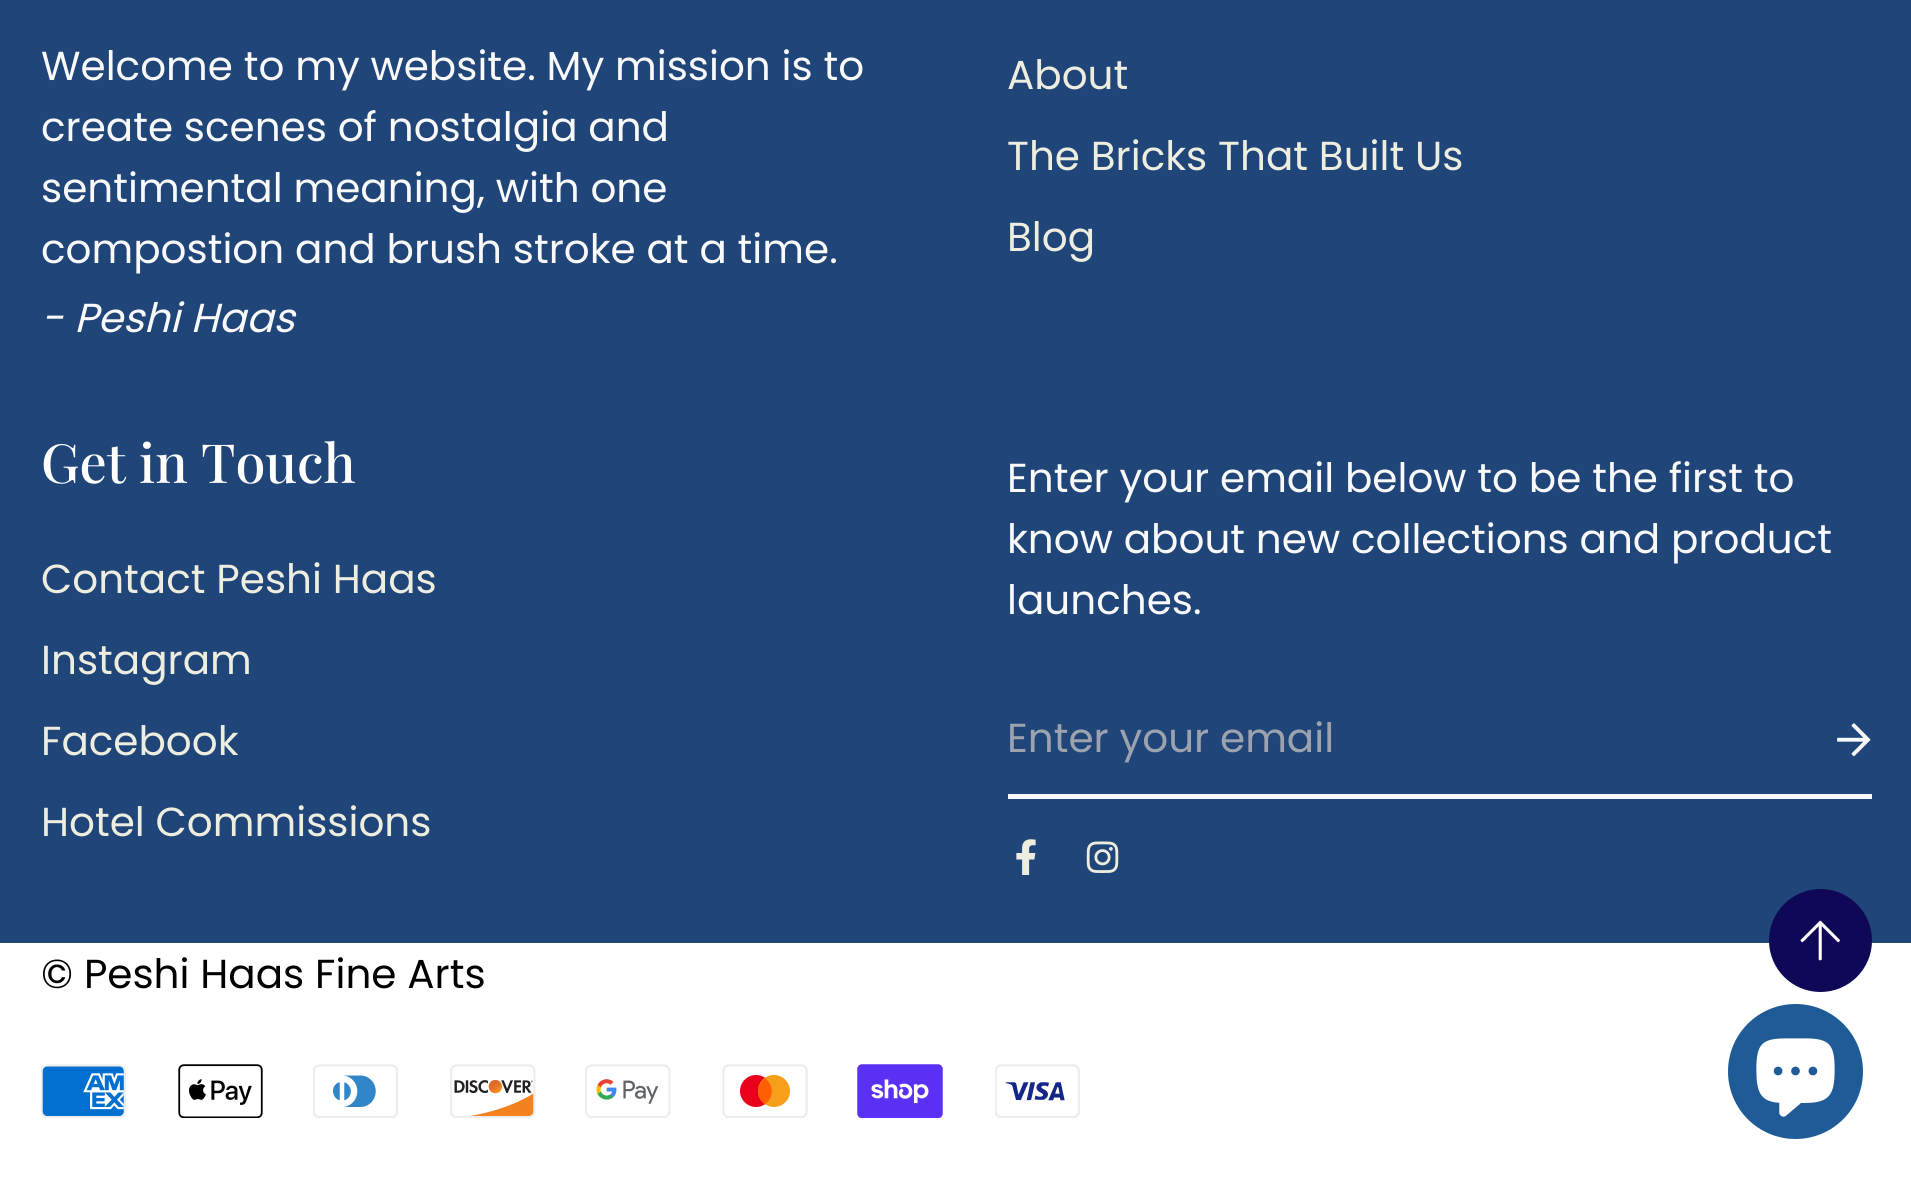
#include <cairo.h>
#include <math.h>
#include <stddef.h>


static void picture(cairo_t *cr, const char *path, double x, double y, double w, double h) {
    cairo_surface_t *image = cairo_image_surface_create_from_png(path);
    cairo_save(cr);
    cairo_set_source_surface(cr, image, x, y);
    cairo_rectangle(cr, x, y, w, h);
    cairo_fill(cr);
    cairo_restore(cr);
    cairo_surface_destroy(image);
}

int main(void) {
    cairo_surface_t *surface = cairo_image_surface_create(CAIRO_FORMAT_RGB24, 1911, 1184);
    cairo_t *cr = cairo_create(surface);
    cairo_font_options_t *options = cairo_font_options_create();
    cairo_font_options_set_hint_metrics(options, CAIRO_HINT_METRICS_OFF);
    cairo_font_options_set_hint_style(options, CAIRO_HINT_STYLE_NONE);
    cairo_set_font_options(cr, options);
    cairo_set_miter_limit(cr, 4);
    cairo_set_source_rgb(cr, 0.125, 0.271, 0.471);
    cairo_paint(cr);
    cairo_select_font_face(cr, "Poppins", CAIRO_FONT_SLANT_NORMAL, CAIRO_FONT_WEIGHT_NORMAL);
    cairo_set_font_size(cr, 40.5);
    cairo_set_source_rgb(cr, 0.973, 0.973, 0.973);
    cairo_move_to(cr, 41, 80);
    cairo_show_text(cr, "Welcome to my website. My mission is to");
    cairo_move_to(cr, 41, 141);
    cairo_show_text(cr, "create scenes of nostalgia and");
    cairo_move_to(cr, 41, 202);
    cairo_show_text(cr, "sentimental meaning, with one");
    cairo_move_to(cr, 41, 263);
    cairo_show_text(cr, "compostion and brush stroke at a time.");
    cairo_select_font_face(cr, "Poppins", CAIRO_FONT_SLANT_ITALIC, CAIRO_FONT_WEIGHT_NORMAL);
    cairo_move_to(cr, 41, 332);
    cairo_show_text(cr, "- Peshi Haas");
    cairo_select_font_face(cr, "Poppins", CAIRO_FONT_SLANT_NORMAL, CAIRO_FONT_WEIGHT_NORMAL);
    cairo_set_source_rgb(cr, 0.933, 0.933, 0.878);
    cairo_move_to(cr, 1007, 89);
    cairo_show_text(cr, "About");
    cairo_move_to(cr, 1007, 170);
    cairo_show_text(cr, "The Bricks That Built Us");
    cairo_move_to(cr, 1007, 251);
    cairo_show_text(cr, "Blog");
    cairo_select_font_face(cr, "Playfair Display Medium", CAIRO_FONT_SLANT_NORMAL, CAIRO_FONT_WEIGHT_NORMAL);
    cairo_set_font_size(cr, 54);
    cairo_set_source_rgb(cr, 1, 1, 1);
    cairo_move_to(cr, 41, 483);
    cairo_show_text(cr, "Get in Touch");
    cairo_select_font_face(cr, "Poppins", CAIRO_FONT_SLANT_NORMAL, CAIRO_FONT_WEIGHT_NORMAL);
    cairo_set_font_size(cr, 40.5);
    cairo_set_source_rgb(cr, 0.933, 0.933, 0.878);
    cairo_move_to(cr, 41, 593);
    cairo_show_text(cr, "Contact Peshi Haas");
    cairo_move_to(cr, 41, 674);
    cairo_show_text(cr, "Instagram");
    cairo_move_to(cr, 41, 755);
    cairo_show_text(cr, "Facebook");
    cairo_move_to(cr, 41, 836);
    cairo_show_text(cr, "Hotel Commissions");
    cairo_set_source_rgb(cr, 0.973, 0.973, 0.973);
    cairo_move_to(cr, 1007, 492);
    cairo_show_text(cr, "Enter your email below to be the first to");
    cairo_move_to(cr, 1007, 553);
    cairo_show_text(cr, "know about new collections and product");
    cairo_move_to(cr, 1007, 614);
    cairo_show_text(cr, "launches.");
    cairo_rectangle(cr, 1008, 794, 864, 5);
    cairo_fill(cr);
    cairo_set_source_rgb(cr, 0.612, 0.639, 0.686);
    cairo_move_to(cr, 1007, 752);
    cairo_show_text(cr, "Enter your email");
    picture(cr, "img1.png", 1837, 723, 34, 34);
    picture(cr, "img2.png", 1016, 839, 20, 36);
    picture(cr, "img3.png", 1086, 841, 33, 32);
    cairo_set_source_rgb(cr, 1, 1, 1);
    cairo_rectangle(cr, 0, 943, 1911, 241);
    cairo_fill(cr);
    cairo_set_source_rgb(cr, 0, 0, 0);
    cairo_move_to(cr, 41, 988);
    cairo_show_text(cr, "© Peshi Haas Fine Arts");
    picture(cr, "img4.png", 41, 1064, 85, 54);
    picture(cr, "img5.png", 178, 1064, 85, 54);
    picture(cr, "img6.png", 313, 1064, 85, 54);
    picture(cr, "img7.png", 450, 1064, 86, 54);
    picture(cr, "img8.png", 585, 1064, 86, 54);
    picture(cr, "img9.png", 722, 1064, 86, 54);
    picture(cr, "img10.png", 857, 1064, 86, 54);
    picture(cr, "img11.png", 995, 1064, 85, 54);
    cairo_set_source_rgb(cr, 0.055, 0.035, 0.341);
    cairo_arc(cr, 1820.5, 940.5, 50.5, 0, 2 * M_PI);
    cairo_fill_preserve(cr);
    cairo_stroke(cr);
    picture(cr, "img12.png", 1800, 920, 40, 41);
    cairo_set_source_rgb(cr, 0.122, 0.361, 0.592);
    cairo_arc(cr, 1795.5, 1071.5, 67.5, 0, 2 * M_PI);
    cairo_fill(cr);
    picture(cr, "img13.png", 1756, 1038, 79, 79);
    cairo_surface_write_to_png(surface, "page.png");
    cairo_font_options_destroy(options);
    cairo_destroy(cr);
    cairo_surface_destroy(surface);
    return 0;
}
